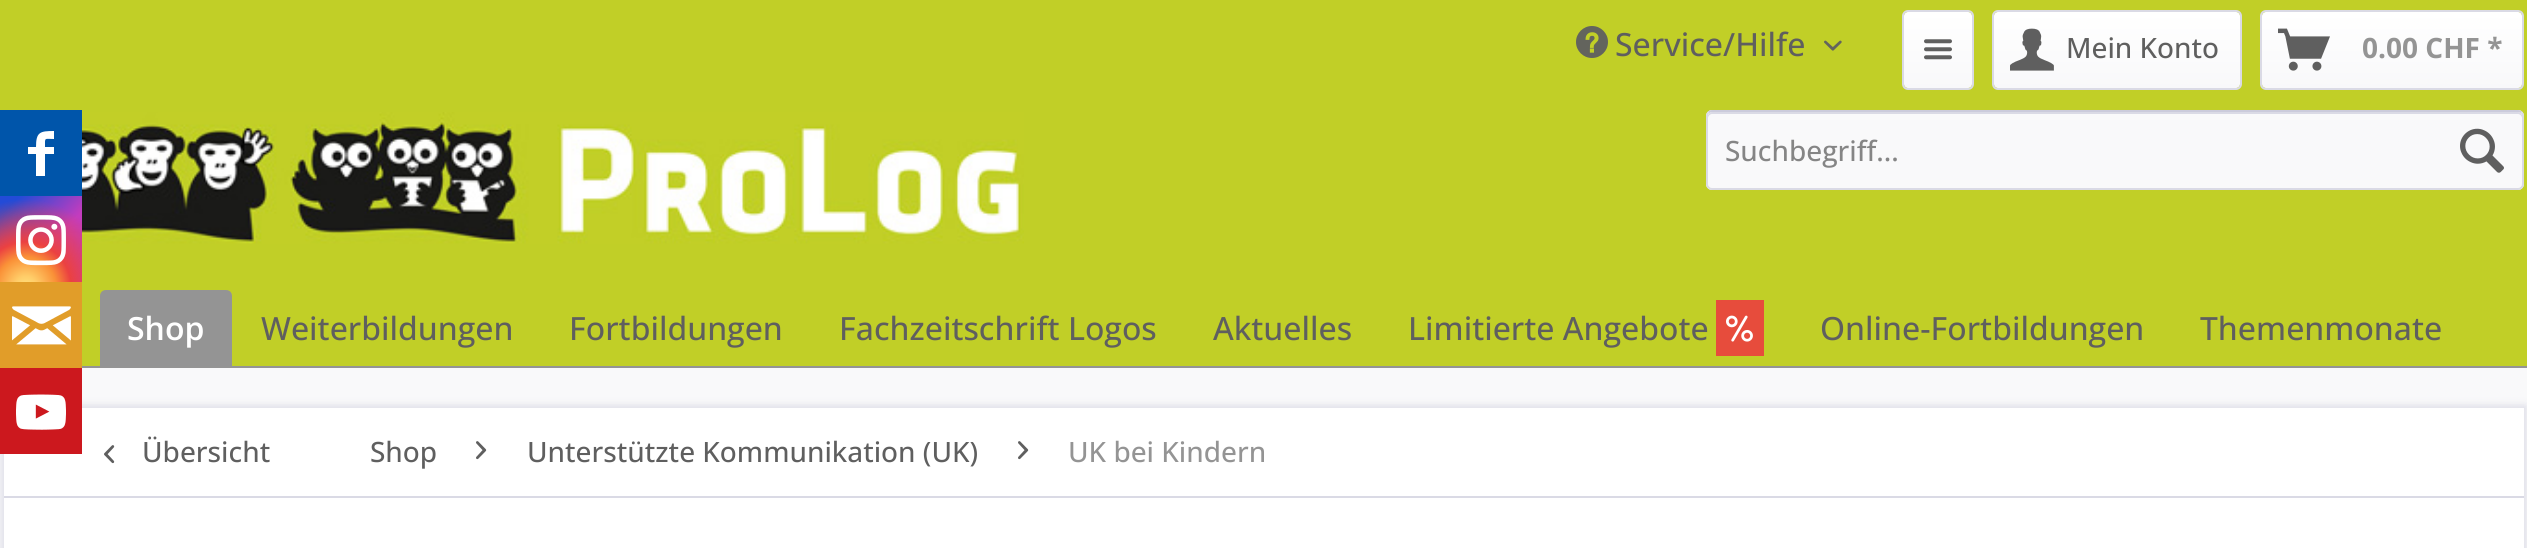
#include <cairo.h>
#include <math.h>
#include <stddef.h>


static void round_rect(cairo_t *cr, double x, double y, double w, double h, double r) {
    cairo_new_sub_path(cr);
    cairo_arc(cr, x + w - r, y + h - r, r, 0, M_PI / 2);
    cairo_arc(cr, x + r, y + h - r, r, M_PI / 2, M_PI);
    cairo_arc(cr, x + r, y + r, r, M_PI, 1.5 * M_PI);
    cairo_arc(cr, x + w - r, y + r, r, 1.5 * M_PI, 2 * M_PI);
    cairo_close_path(cr);
}

static void shadow(cairo_t *cr, double x, double y, double w, double h, double r, double blur, double alpha) {
    cairo_push_group_with_content(cr, CAIRO_CONTENT_ALPHA);
    cairo_set_operator(cr, CAIRO_OPERATOR_SOURCE);
    for (int i = 15; i >= -15 && fmin(w, h) + blur * i / 3 > 0; i -= 2) {
        double e = blur * i / 6;
        cairo_set_source_rgba(cr, 0, 0, 0, alpha * erfc((i - 1) / 8.5) / 2);
        round_rect(cr, x - e, y - e, w + 2 * e, h + 2 * e, fmax(0, fmin(r + e + blur * .6, fmin(w, h) / 2 + e)));
        cairo_fill(cr);
    }
    cairo_pattern_t *soft = cairo_pop_group(cr);
    cairo_mask(cr, soft);
    cairo_pattern_destroy(soft);
}

static void picture(cairo_t *cr, const char *path, double x, double y, double w, double h) {
    cairo_surface_t *image = cairo_image_surface_create_from_png(path);
    cairo_save(cr);
    cairo_set_source_surface(cr, image, x, y);
    cairo_rectangle(cr, x, y, w, h);
    cairo_fill(cr);
    cairo_restore(cr);
    cairo_surface_destroy(image);
}

int main(void) {
    cairo_surface_t *surface = cairo_image_surface_create(CAIRO_FORMAT_RGB24, 2527, 548);
    cairo_t *cr = cairo_create(surface);
    cairo_font_options_t *options = cairo_font_options_create();
    cairo_font_options_set_hint_metrics(options, CAIRO_HINT_METRICS_OFF);
    cairo_font_options_set_hint_style(options, CAIRO_HINT_STYLE_NONE);
    cairo_set_font_options(cr, options);
    cairo_set_miter_limit(cr, 4);
    cairo_pattern_t *gradient;
    cairo_set_source_rgb(cr, 0.973, 0.973, 0.98);
    cairo_paint(cr);
    cairo_set_source_rgb(cr, 0.757, 0.812, 0.153);
    cairo_rectangle(cr, 0, 0, 2527, 290);
    cairo_fill(cr);
    cairo_set_source_rgb(cr, 0, 0.333, 0.667);
    cairo_rectangle(cr, 0, 110, 82, 86);
    cairo_fill(cr);
    cairo_set_source_rgb(cr, 1, 1, 1);
    cairo_new_path(cr);
    cairo_move_to(cr, 54, 139);
    cairo_curve_to(cr, 44, 139, 45, 137, 45, 147);
    cairo_line_to(cr, 54, 147);
    cairo_line_to(cr, 54, 154);
    cairo_line_to(cr, 45, 154);
    cairo_line_to(cr, 45, 176);
    cairo_line_to(cr, 36, 176);
    cairo_line_to(cr, 36, 154);
    cairo_line_to(cr, 28, 154);
    cairo_line_to(cr, 28, 147);
    cairo_line_to(cr, 36, 147);
    cairo_curve_to(cr, 36, 132, 40, 131, 54, 131);
    cairo_close_path(cr);
    cairo_fill(cr);
    gradient = cairo_pattern_create_linear(-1, 197, 83, 281);
    cairo_pattern_add_color_stop_rgba(gradient, 0.12, 0.137, 0.294, 0.843, 1);
    cairo_pattern_add_color_stop_rgba(gradient, 0.58, 0.765, 0.235, 0.745, 1);
    cairo_set_source(cr, gradient);
    cairo_pattern_destroy(gradient);
    cairo_rectangle(cr, 0, 196, 82, 86);
    cairo_fill(cr);
    gradient = cairo_pattern_create_radial(26, 287, 0, 26, 287, 107);
    cairo_pattern_add_color_stop_rgba(gradient, 0, 1, 0.882, 0.49, 1);
    cairo_pattern_add_color_stop_rgba(gradient, 0.1, 1, 0.804, 0.412, 1);
    cairo_pattern_add_color_stop_rgba(gradient, 0.28, 0.98, 0.569, 0.216, 1);
    cairo_pattern_add_color_stop_rgba(gradient, 0.42, 0.922, 0.255, 0.255, 1);
    cairo_pattern_add_color_stop_rgba(gradient, 0.82, 0.922, 0.255, 0.255, 0);
    cairo_set_source(cr, gradient);
    cairo_pattern_destroy(gradient);
    cairo_rectangle(cr, 0, 200, 82, 82);
    cairo_fill(cr);
    picture(cr, "img1.png", 16, 215, 50, 51);
    cairo_set_source_rgb(cr, 0.882, 0.616, 0.161);
    cairo_rectangle(cr, 0, 282, 82, 86);
    cairo_fill(cr);
    picture(cr, "img2.png", 12, 306, 59, 39);
    cairo_set_source_rgb(cr, 0.855, 0.855, 0.898);
    shadow(cr, 2, 406, 2524, 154, 0, 4, 1);
    cairo_set_source_rgb(cr, 1, 1, 1);
    cairo_rectangle(cr, 4, 408, 2520, 140);
    cairo_fill(cr);
    cairo_set_source_rgb(cr, 0.8, 0.094, 0.118);
    cairo_rectangle(cr, 0, 368, 82, 86);
    cairo_fill(cr);
    picture(cr, "img3.png", 16, 394, 50, 36);
    picture(cr, "img4.png", 1576, 26, 32, 32);
    cairo_select_font_face(cr, "Open Sans Medium", CAIRO_FONT_SLANT_NORMAL, CAIRO_FONT_WEIGHT_NORMAL);
    cairo_set_font_size(cr, 32);
    cairo_set_source_rgb(cr, 0.373, 0.373, 0.373);
    cairo_move_to(cr, 1615, 56);
    cairo_show_text(cr, "Service/Hilfe");
    picture(cr, "img5.png", 1824, 40, 18, 11);
    gradient = cairo_pattern_create_linear(1938, 12, 1938, 88);
    cairo_pattern_add_color_stop_rgba(gradient, 0, 1, 1, 1, 1);
    cairo_pattern_add_color_stop_rgba(gradient, 1, 0.973, 0.973, 0.98, 1);
    cairo_set_source(cr, gradient);
    cairo_pattern_destroy(gradient);
    round_rect(cr, 1904, 12, 68, 76, 4);
    cairo_fill(cr);
    round_rect(cr, 1903, 11, 70, 78, 5);
    cairo_set_source_rgb(cr, 0.855, 0.855, 0.898);
    cairo_stroke(cr);
    picture(cr, "img6.png", 1924, 39, 28, 21);
    gradient = cairo_pattern_create_linear(2117, 12, 2117, 88);
    cairo_pattern_add_color_stop_rgba(gradient, 0, 1, 1, 1, 1);
    cairo_pattern_add_color_stop_rgba(gradient, 1, 0.973, 0.973, 0.98, 1);
    cairo_set_source(cr, gradient);
    cairo_pattern_destroy(gradient);
    round_rect(cr, 1994, 12, 246, 76, 4);
    cairo_fill(cr);
    round_rect(cr, 1993, 11, 248, 78, 5);
    cairo_set_source_rgb(cr, 0.855, 0.855, 0.898);
    cairo_stroke(cr);
    picture(cr, "img7.png", 2010, 28, 44, 43);
    cairo_set_font_size(cr, 28);
    cairo_set_source_rgb(cr, 0.373, 0.373, 0.373);
    cairo_move_to(cr, 2066, 58);
    cairo_show_text(cr, "Mein Konto");
    gradient = cairo_pattern_create_linear(2392, 12, 2392, 88);
    cairo_pattern_add_color_stop_rgba(gradient, 0, 1, 1, 1, 1);
    cairo_pattern_add_color_stop_rgba(gradient, 1, 0.973, 0.973, 0.98, 1);
    cairo_set_source(cr, gradient);
    cairo_pattern_destroy(gradient);
    round_rect(cr, 2262, 12, 260, 76, 4);
    cairo_fill(cr);
    round_rect(cr, 2261, 11, 262, 78, 5);
    cairo_set_source_rgb(cr, 0.855, 0.855, 0.898);
    cairo_stroke(cr);
    picture(cr, "img8.png", 2278, 28, 52, 43);
    cairo_select_font_face(cr, "Open Sans", CAIRO_FONT_SLANT_NORMAL, CAIRO_FONT_WEIGHT_BOLD);
    cairo_set_source_rgb(cr, 0.58, 0.58, 0.58);
    cairo_move_to(cr, 2362, 58);
    cairo_show_text(cr, "0.00 CHF *");
    picture(cr, "img9.png", 82, 112, 942, 132);
    cairo_set_source_rgb(cr, 0.973, 0.973, 0.98);
    round_rect(cr, 1706, 110, 818, 80, 6);
    cairo_fill(cr);
    cairo_set_source_rgb(cr, 0.855, 0.855, 0.898);
    cairo_new_path(cr);
    cairo_move_to(cr, 1712, 114);
    cairo_line_to(cr, 2518, 114);
    cairo_curve_to(cr, 2520, 114, 2522, 116, 2522, 118);
    cairo_line_to(cr, 2522, 116);
    cairo_curve_to(cr, 2522, 114, 2520, 112, 2518, 112);
    cairo_line_to(cr, 1712, 112);
    cairo_curve_to(cr, 1710, 112, 1708, 114, 1708, 116);
    cairo_line_to(cr, 1708, 118);
    cairo_curve_to(cr, 1708, 116, 1710, 114, 1712, 114);
    cairo_close_path(cr);
    cairo_fill(cr);
    cairo_new_path(cr);
    cairo_move_to(cr, 1708.5, 112.5);
    cairo_curve_to(cr, 1709.5, 111.5, 1710.5, 111, 1712, 111);
    cairo_line_to(cr, 2518, 111);
    cairo_curve_to(cr, 2519.5, 111, 2520.5, 111.5, 2521.5, 112.5);
    cairo_set_source_rgb(cr, 0.796, 0.796, 0.859);
    cairo_stroke(cr);
    cairo_new_path(cr);
    cairo_move_to(cr, 2521.5, 112.5);
    cairo_curve_to(cr, 2522.5, 113.5, 2523, 114.5, 2523, 116);
    cairo_line_to(cr, 2523, 184);
    cairo_curve_to(cr, 2523, 185.5, 2522.5, 186.5, 2521.5, 187.5);
    cairo_curve_to(cr, 2520.5, 188.5, 2519.5, 189, 2518, 189);
    cairo_line_to(cr, 1712, 189);
    cairo_curve_to(cr, 1710.5, 189, 1709.5, 188.5, 1708.5, 187.5);
    cairo_curve_to(cr, 1707.5, 186.5, 1707, 185.5, 1707, 184);
    cairo_line_to(cr, 1707, 116);
    cairo_curve_to(cr, 1707, 114.5, 1707.5, 113.5, 1708.5, 112.5);
    cairo_set_source_rgb(cr, 0.855, 0.855, 0.898);
    cairo_stroke(cr);
    cairo_select_font_face(cr, "Open Sans Medium", CAIRO_FONT_SLANT_NORMAL, CAIRO_FONT_WEIGHT_NORMAL);
    cairo_set_source_rgb(cr, 0.522, 0.522, 0.522);
    cairo_move_to(cr, 1725, 161);
    cairo_show_text(cr, "Suchbegriff...");
    picture(cr, "img10.png", 2460, 128, 44, 45);
    cairo_set_source_rgb(cr, 0.757, 0.812, 0.153);
    cairo_rectangle(cr, 82, 290, 2445, 76);
    cairo_fill(cr);
    cairo_set_source_rgb(cr, 0.58, 0.58, 0.58);
    cairo_rectangle(cr, 82, 366, 2445, 2);
    cairo_fill(cr);
    cairo_new_path(cr);
    cairo_move_to(cr, 106, 290);
    cairo_line_to(cr, 226, 290);
    cairo_curve_to(cr, 229.5, 290, 232, 292.5, 232, 296);
    cairo_line_to(cr, 232, 366);
    cairo_line_to(cr, 100, 366);
    cairo_line_to(cr, 100, 296);
    cairo_curve_to(cr, 100, 292.5, 102.5, 290, 106, 290);
    cairo_close_path(cr);
    cairo_fill(cr);
    cairo_select_font_face(cr, "Open Sans SemiBold", CAIRO_FONT_SLANT_NORMAL, CAIRO_FONT_WEIGHT_NORMAL);
    cairo_set_font_size(cr, 32);
    cairo_set_source_rgb(cr, 1, 1, 1);
    cairo_move_to(cr, 127, 340);
    cairo_show_text(cr, "Shop");
    cairo_select_font_face(cr, "Open Sans Medium", CAIRO_FONT_SLANT_NORMAL, CAIRO_FONT_WEIGHT_NORMAL);
    cairo_set_source_rgb(cr, 0.373, 0.373, 0.373);
    cairo_move_to(cr, 261, 340);
    cairo_show_text(cr, "Weiterbildungen");
    cairo_move_to(cr, 569, 340);
    cairo_show_text(cr, "Fortbildungen");
    cairo_move_to(cr, 839, 340);
    cairo_show_text(cr, "Fachzeitschrift Logos");
    cairo_move_to(cr, 1213, 340);
    cairo_show_text(cr, "Aktuelles");
    cairo_move_to(cr, 1408, 340);
    cairo_show_text(cr, "Limitierte Angebote");
    cairo_set_source_rgb(cr, 0.906, 0.298, 0.235);
    cairo_rectangle(cr, 1716, 300, 48, 56);
    cairo_fill(cr);
    picture(cr, "img11.png", 1726, 315, 27, 27);
    cairo_set_source_rgb(cr, 0.373, 0.373, 0.373);
    cairo_move_to(cr, 1820, 340);
    cairo_show_text(cr, "Online-Fortbildungen");
    cairo_move_to(cr, 2200, 340);
    cairo_show_text(cr, "Themenmonate");
    cairo_set_source_rgb(cr, 0.855, 0.855, 0.898);
    cairo_rectangle(cr, 4, 496, 2520, 2);
    cairo_fill(cr);
    picture(cr, "img12.png", 104, 445, 11, 19);
    cairo_set_font_size(cr, 28);
    cairo_set_source_rgb(cr, 0.373, 0.373, 0.373);
    cairo_move_to(cr, 142, 462);
    cairo_show_text(cr, "Übersicht");
    cairo_move_to(cr, 370, 462);
    cairo_show_text(cr, "Shop");
    picture(cr, "img13.png", 476, 441, 11, 19);
    cairo_move_to(cr, 527, 462);
    cairo_show_text(cr, "Unterstützte Kommunikation (UK)");
    picture(cr, "img13.png", 1018, 441, 11, 19);
    cairo_set_source_rgb(cr, 0.58, 0.58, 0.58);
    cairo_move_to(cr, 1068, 462);
    cairo_show_text(cr, "UK bei Kindern");
    cairo_surface_write_to_png(surface, "page.png");
    cairo_font_options_destroy(options);
    cairo_destroy(cr);
    cairo_surface_destroy(surface);
    return 0;
}
